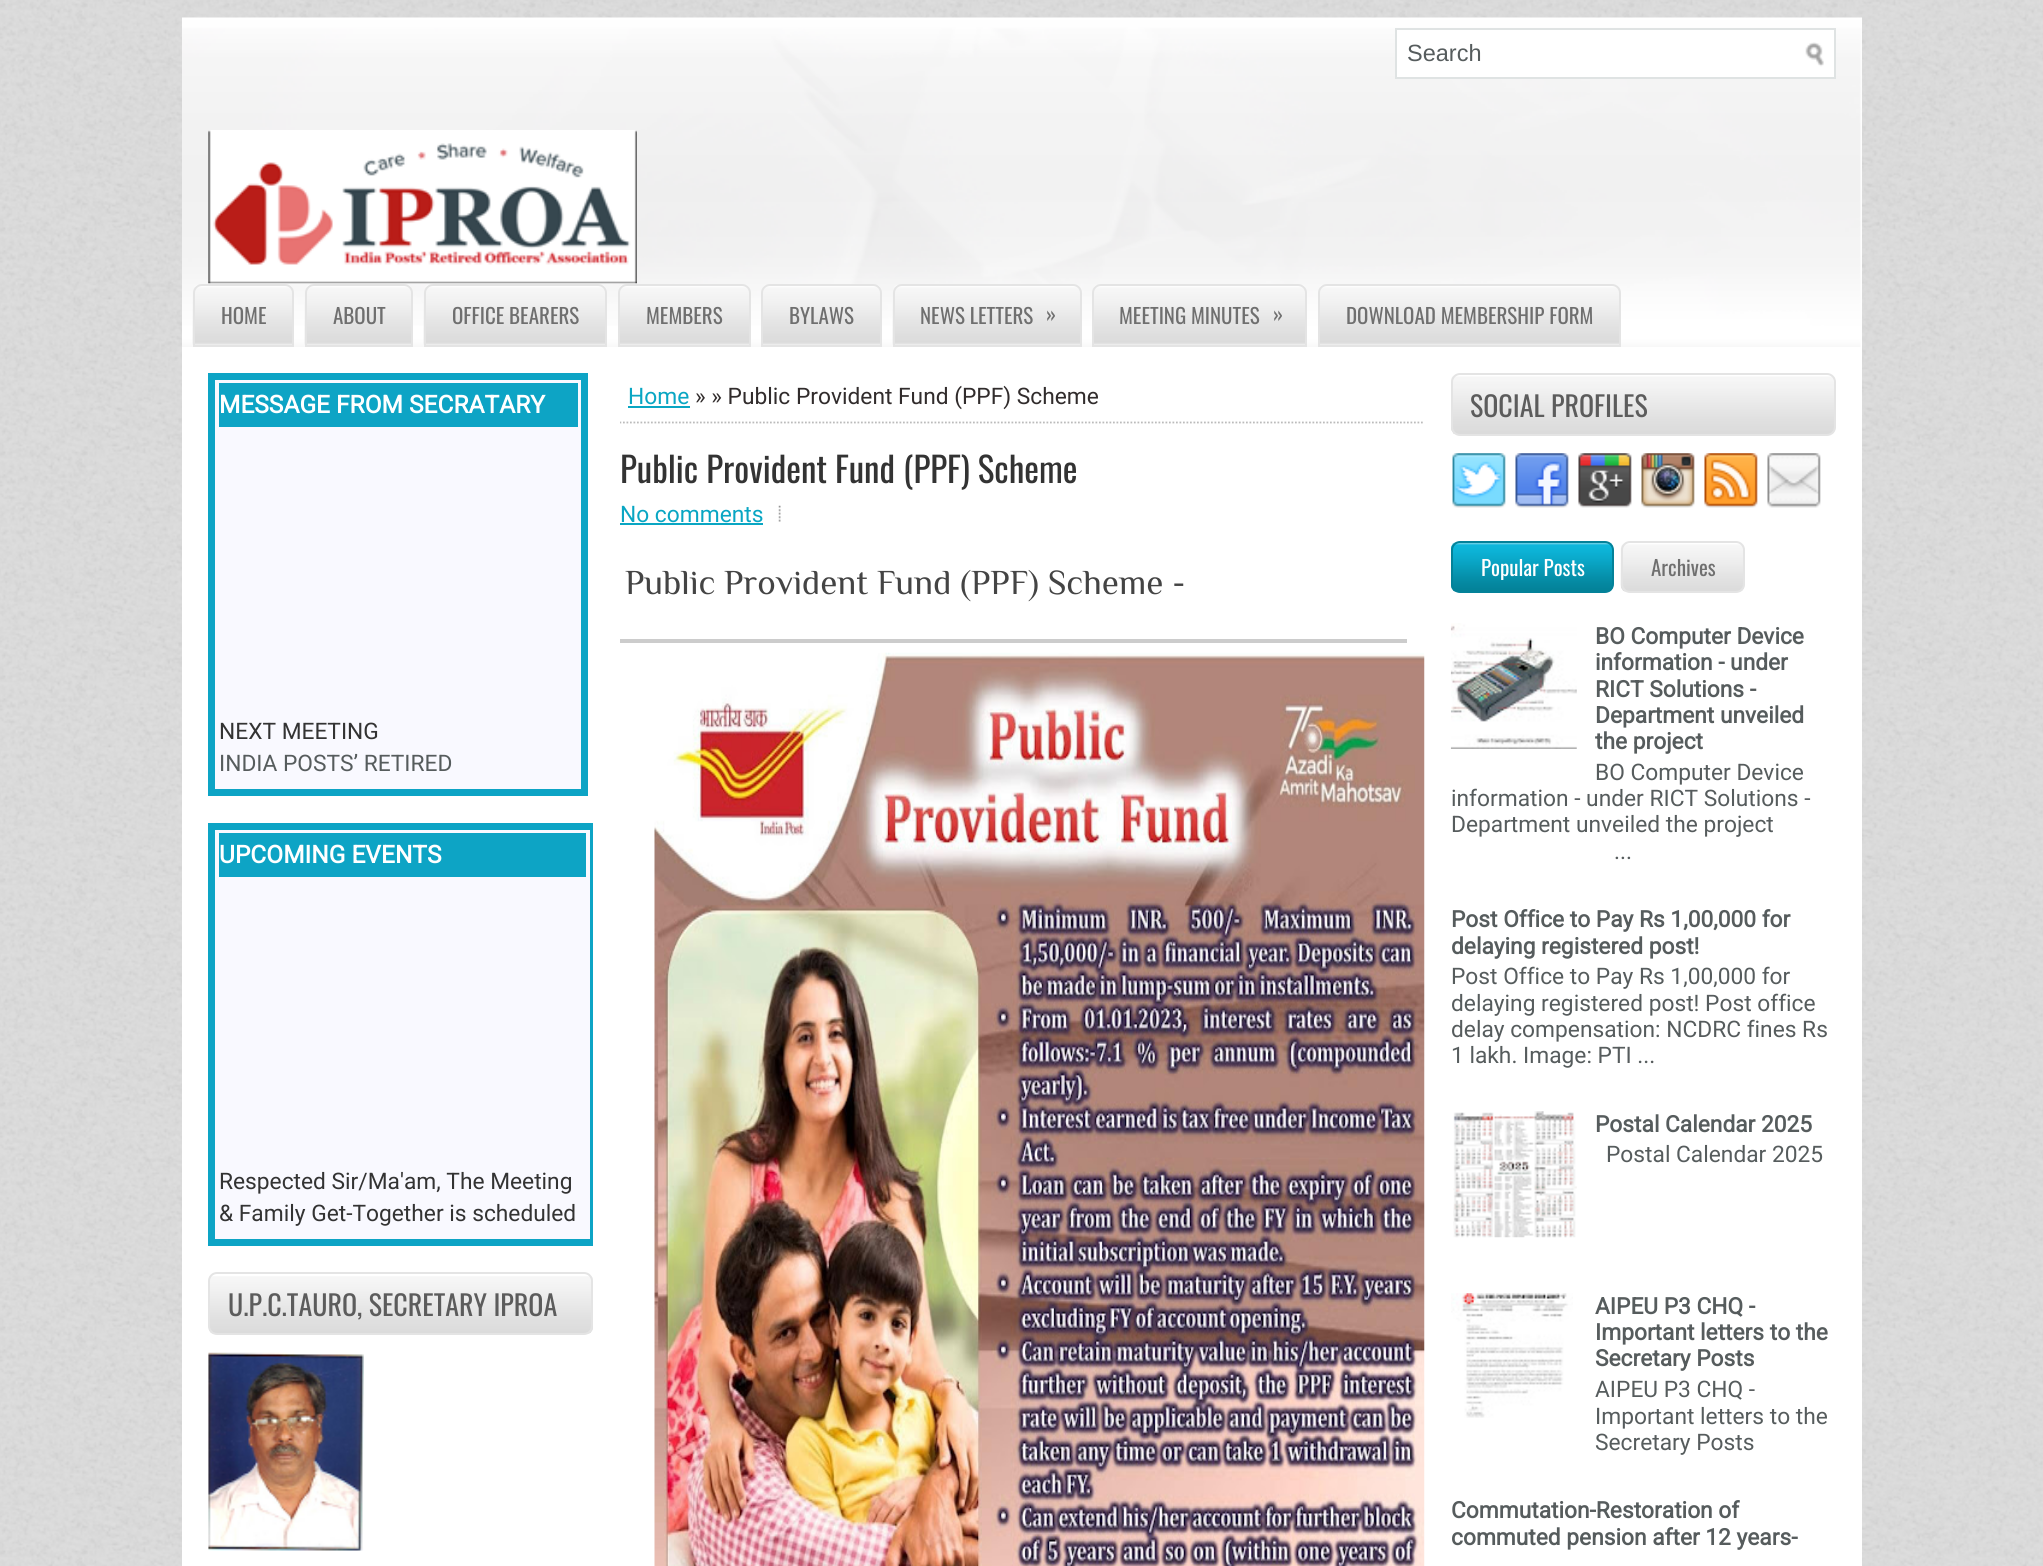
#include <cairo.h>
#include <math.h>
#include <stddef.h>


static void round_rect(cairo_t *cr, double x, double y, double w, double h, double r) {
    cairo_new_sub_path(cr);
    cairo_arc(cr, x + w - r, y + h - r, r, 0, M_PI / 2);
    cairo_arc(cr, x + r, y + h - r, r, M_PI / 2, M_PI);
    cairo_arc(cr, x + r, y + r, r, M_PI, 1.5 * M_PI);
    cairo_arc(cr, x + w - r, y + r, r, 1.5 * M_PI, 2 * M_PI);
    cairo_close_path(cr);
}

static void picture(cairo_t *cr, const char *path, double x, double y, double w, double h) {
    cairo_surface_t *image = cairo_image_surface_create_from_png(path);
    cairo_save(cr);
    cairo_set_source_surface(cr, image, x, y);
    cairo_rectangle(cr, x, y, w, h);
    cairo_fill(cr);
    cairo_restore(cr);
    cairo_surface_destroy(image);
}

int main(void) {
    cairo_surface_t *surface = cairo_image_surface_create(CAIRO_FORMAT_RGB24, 2043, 1566);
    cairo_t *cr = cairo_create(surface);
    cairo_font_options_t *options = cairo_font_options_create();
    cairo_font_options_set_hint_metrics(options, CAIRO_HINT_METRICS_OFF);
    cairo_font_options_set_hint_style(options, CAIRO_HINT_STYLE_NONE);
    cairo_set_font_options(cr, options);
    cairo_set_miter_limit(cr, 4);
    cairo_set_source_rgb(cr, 1, 1, 1);
    cairo_paint(cr);
    picture(cr, "img1.png", 0, 0, 2043, 1566);
    picture(cr, "img2.png", 182, 17, 1680, 330);
    cairo_set_source_rgb(cr, 1, 1, 1);
    cairo_rectangle(cr, 1397, 30, 437, 47);
    cairo_fill(cr);
    picture(cr, "img3.png", 1805, 42, 19, 25);
    cairo_rectangle(cr, 1396, 29, 439, 49);
    cairo_set_source_rgb(cr, 0.875, 0.89, 0.89);
    cairo_stroke(cr);
    cairo_select_font_face(cr, "Liberation Sans", CAIRO_FONT_SLANT_NORMAL, CAIRO_FONT_WEIGHT_NORMAL);
    cairo_set_font_size(cr, 23.5);
    cairo_set_source_rgb(cr, 0.337, 0.361, 0.365);
    cairo_move_to(cr, 1407, 61);
    cairo_show_text(cr, "Search");
    picture(cr, "img4.png", 208, 130, 429, 154);
    picture(cr, "img5.png", 192, 285, 102, 60);
    cairo_new_path(cr);
    cairo_move_to(cr, 202, 285);
    cairo_line_to(cr, 285, 285);
    cairo_curve_to(cr, 289.5, 285, 293, 288.5, 293, 293);
    cairo_line_to(cr, 293, 346);
    cairo_line_to(cr, 194, 346);
    cairo_line_to(cr, 194, 293);
    cairo_curve_to(cr, 194, 288.5, 197.5, 285, 202, 285);
    cairo_close_path(cr);
    cairo_set_source_rgb(cr, 0.894, 0.894, 0.894);
    cairo_stroke(cr);
    cairo_select_font_face(cr, "Oswald", CAIRO_FONT_SLANT_NORMAL, CAIRO_FONT_WEIGHT_NORMAL);
    cairo_set_font_size(cr, 21);
    cairo_set_source_rgb(cr, 0.435, 0.435, 0.435);
    cairo_move_to(cr, 221, 324);
    cairo_show_text(cr, "HOME");
    picture(cr, "img6.png", 304, 285, 109, 60);
    cairo_new_path(cr);
    cairo_move_to(cr, 314, 285);
    cairo_line_to(cr, 404, 285);
    cairo_curve_to(cr, 408.5, 285, 412, 288.5, 412, 293);
    cairo_line_to(cr, 412, 346);
    cairo_line_to(cr, 306, 346);
    cairo_line_to(cr, 306, 293);
    cairo_curve_to(cr, 306, 288.5, 309.5, 285, 314, 285);
    cairo_close_path(cr);
    cairo_set_source_rgb(cr, 0.894, 0.894, 0.894);
    cairo_stroke(cr);
    cairo_set_source_rgb(cr, 0.435, 0.435, 0.435);
    cairo_move_to(cr, 333, 324);
    cairo_show_text(cr, "ABOUT");
    picture(cr, "img7.png", 423, 285, 184, 60);
    cairo_new_path(cr);
    cairo_move_to(cr, 433, 285);
    cairo_line_to(cr, 598, 285);
    cairo_curve_to(cr, 602.5, 285, 606, 288.5, 606, 293);
    cairo_line_to(cr, 606, 346);
    cairo_line_to(cr, 425, 346);
    cairo_line_to(cr, 425, 293);
    cairo_curve_to(cr, 425, 288.5, 428.5, 285, 433, 285);
    cairo_close_path(cr);
    cairo_set_source_rgb(cr, 0.894, 0.894, 0.894);
    cairo_stroke(cr);
    cairo_set_source_rgb(cr, 0.435, 0.435, 0.435);
    cairo_move_to(cr, 452, 324);
    cairo_show_text(cr, "OFFICE BEARERS");
    picture(cr, "img8.png", 618, 285, 133, 60);
    cairo_new_path(cr);
    cairo_move_to(cr, 627, 285);
    cairo_line_to(cr, 742, 285);
    cairo_curve_to(cr, 746.5, 285, 750, 288.5, 750, 293);
    cairo_line_to(cr, 750, 346);
    cairo_line_to(cr, 619, 346);
    cairo_line_to(cr, 619, 293);
    cairo_curve_to(cr, 619, 288.5, 622.5, 285, 627, 285);
    cairo_close_path(cr);
    cairo_set_source_rgb(cr, 0.894, 0.894, 0.894);
    cairo_stroke(cr);
    cairo_set_source_rgb(cr, 0.435, 0.435, 0.435);
    cairo_move_to(cr, 646, 324);
    cairo_show_text(cr, "MEMBERS");
    picture(cr, "img9.png", 761, 285, 121, 60);
    cairo_new_path(cr);
    cairo_move_to(cr, 770, 285);
    cairo_line_to(cr, 873, 285);
    cairo_curve_to(cr, 877.5, 285, 881, 288.5, 881, 293);
    cairo_line_to(cr, 881, 346);
    cairo_line_to(cr, 762, 346);
    cairo_line_to(cr, 762, 293);
    cairo_curve_to(cr, 762, 288.5, 765.5, 285, 770, 285);
    cairo_close_path(cr);
    cairo_set_source_rgb(cr, 0.894, 0.894, 0.894);
    cairo_stroke(cr);
    cairo_set_source_rgb(cr, 0.435, 0.435, 0.435);
    cairo_move_to(cr, 789, 324);
    cairo_show_text(cr, "BYLAWS");
    picture(cr, "img10.png", 892, 285, 190, 60);
    cairo_new_path(cr);
    cairo_move_to(cr, 902, 285);
    cairo_line_to(cr, 1073, 285);
    cairo_curve_to(cr, 1077.5, 285, 1081, 288.5, 1081, 293);
    cairo_line_to(cr, 1081, 346);
    cairo_line_to(cr, 894, 346);
    cairo_line_to(cr, 894, 293);
    cairo_curve_to(cr, 894, 288.5, 897.5, 285, 902, 285);
    cairo_close_path(cr);
    cairo_set_source_rgb(cr, 0.894, 0.894, 0.894);
    cairo_stroke(cr);
    cairo_set_source_rgb(cr, 0.435, 0.435, 0.435);
    cairo_move_to(cr, 920, 324);
    cairo_show_text(cr, "NEWS LETTERS");
    cairo_move_to(cr, 1046, 322);
    cairo_show_text(cr, "»");
    picture(cr, "img11.png", 1092, 285, 215, 60);
    cairo_new_path(cr);
    cairo_move_to(cr, 1101, 285);
    cairo_line_to(cr, 1298, 285);
    cairo_curve_to(cr, 1302.5, 285, 1306, 288.5, 1306, 293);
    cairo_line_to(cr, 1306, 346);
    cairo_line_to(cr, 1093, 346);
    cairo_line_to(cr, 1093, 293);
    cairo_curve_to(cr, 1093, 288.5, 1096.5, 285, 1101, 285);
    cairo_close_path(cr);
    cairo_set_source_rgb(cr, 0.894, 0.894, 0.894);
    cairo_stroke(cr);
    cairo_set_source_rgb(cr, 0.435, 0.435, 0.435);
    cairo_move_to(cr, 1119, 324);
    cairo_show_text(cr, "MEETING MINUTES");
    cairo_move_to(cr, 1273, 322);
    cairo_show_text(cr, "»");
    picture(cr, "img12.png", 1318, 285, 303, 60);
    cairo_new_path(cr);
    cairo_move_to(cr, 1327, 285);
    cairo_line_to(cr, 1612, 285);
    cairo_curve_to(cr, 1616.5, 285, 1620, 288.5, 1620, 293);
    cairo_line_to(cr, 1620, 346);
    cairo_line_to(cr, 1319, 346);
    cairo_line_to(cr, 1319, 293);
    cairo_curve_to(cr, 1319, 288.5, 1322.5, 285, 1327, 285);
    cairo_close_path(cr);
    cairo_set_source_rgb(cr, 0.894, 0.894, 0.894);
    cairo_stroke(cr);
    cairo_set_source_rgb(cr, 0.435, 0.435, 0.435);
    cairo_move_to(cr, 1346, 324);
    cairo_show_text(cr, "DOWNLOAD MEMBERSHIP FORM");
    cairo_set_source_rgb(cr, 1, 1, 1);
    cairo_rectangle(cr, 182, 347, 1680, 1219);
    cairo_fill(cr);
    cairo_set_source_rgb(cr, 0.976, 0.976, 1);
    cairo_rectangle(cr, 211.5, 376.5, 373, 416);
    cairo_fill_preserve(cr);
    cairo_set_source_rgb(cr, 0.051, 0.643, 0.773);
    cairo_set_line_width(cr, 7);
    cairo_stroke(cr);
    cairo_rectangle(cr, 219, 383, 359, 44);
    cairo_fill(cr);
    cairo_select_font_face(cr, "Roboto", CAIRO_FONT_SLANT_NORMAL, CAIRO_FONT_WEIGHT_BOLD);
    cairo_set_font_size(cr, 24.5);
    cairo_set_source_rgb(cr, 1, 1, 1);
    cairo_move_to(cr, 219, 413);
    cairo_show_text(cr, "MESSAGE FROM SECRATARY");
    cairo_select_font_face(cr, "Roboto", CAIRO_FONT_SLANT_NORMAL, CAIRO_FONT_WEIGHT_NORMAL);
    cairo_set_font_size(cr, 22.75);
    cairo_set_source_rgb(cr, 0.2, 0.2, 0.2);
    cairo_move_to(cr, 219, 739);
    cairo_show_text(cr, "NEXT MEETING");
    cairo_set_source_rgb(cr, 0.337, 0.361, 0.365);
    cairo_move_to(cr, 219, 771);
    cairo_show_text(cr, "INDIA POSTS’ RETIRED");
    cairo_set_source_rgb(cr, 0.976, 0.976, 1);
    cairo_rectangle(cr, 215, 830, 375, 409);
    cairo_fill(cr);
    cairo_save(cr);
    cairo_rectangle(cr, 208, 373, 385, 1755);
    cairo_clip(cr);
    cairo_rectangle(cr, 211.5, 826.5, 382, 416);
    cairo_set_source_rgb(cr, 0.051, 0.643, 0.773);
    cairo_stroke(cr);
    cairo_restore(cr);
    cairo_set_source_rgb(cr, 0.051, 0.643, 0.773);
    cairo_rectangle(cr, 219, 833, 367, 44);
    cairo_fill(cr);
    cairo_select_font_face(cr, "Roboto", CAIRO_FONT_SLANT_NORMAL, CAIRO_FONT_WEIGHT_BOLD);
    cairo_set_font_size(cr, 24.5);
    cairo_set_source_rgb(cr, 1, 1, 1);
    cairo_move_to(cr, 219, 863);
    cairo_show_text(cr, "UPCOMING EVENTS");
    cairo_select_font_face(cr, "Roboto", CAIRO_FONT_SLANT_NORMAL, CAIRO_FONT_WEIGHT_NORMAL);
    cairo_set_font_size(cr, 22.75);
    cairo_set_source_rgb(cr, 0.2, 0.2, 0.2);
    cairo_move_to(cr, 219, 1189);
    cairo_show_text(cr, "Respected Sir/Ma'am, The Meeting");
    cairo_move_to(cr, 219, 1221);
    cairo_show_text(cr, "& Family Get-Together is scheduled");
    picture(cr, "img13.png", 208, 1276, 385, 58);
    round_rect(cr, 209, 1273, 383, 61, 8);
    cairo_set_source_rgb(cr, 0.894, 0.894, 0.894);
    cairo_set_line_width(cr, 2);
    cairo_stroke(cr);
    cairo_select_font_face(cr, "Oswald", CAIRO_FONT_SLANT_NORMAL, CAIRO_FONT_WEIGHT_NORMAL);
    cairo_set_font_size(cr, 28);
    cairo_set_source_rgb(cr, 0.361, 0.361, 0.361);
    cairo_move_to(cr, 228, 1316);
    cairo_show_text(cr, "U.P.C.TAURO, SECRETARY IPROA");
    picture(cr, "img14.png", 208, 1352, 156, 199);
    cairo_save(cr);
    cairo_rectangle(cr, 620, 373, 805, 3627);
    cairo_clip(cr);
    cairo_new_path(cr);
    cairo_move_to(cr, 619.5, 422.5);
    cairo_line_to(cr, 1424.5, 422.5);
    cairo_set_source_rgb(cr, 0.733, 0.733, 0.733);
    cairo_set_line_width(cr, 1.8);
    cairo_set_dash(cr, (double[]){1.75, 1.75}, 2, 0);
    cairo_stroke(cr);
    cairo_restore(cr);
    cairo_select_font_face(cr, "Roboto", CAIRO_FONT_SLANT_NORMAL, CAIRO_FONT_WEIGHT_NORMAL);
    cairo_set_font_size(cr, 22.75);
    cairo_set_source_rgb(cr, 0.039, 0.651, 0.765);
    cairo_move_to(cr, 628, 404);
    cairo_show_text(cr, "Home");
    cairo_rectangle(cr, 628, 406, 62, 2);
    cairo_fill(cr);
    cairo_set_source_rgb(cr, 0.192, 0.173, 0.173);
    cairo_move_to(cr, 695, 404);
    cairo_show_text(cr, "» » Public Provident Fund (PPF) Scheme");
    cairo_select_font_face(cr, "Oswald", CAIRO_FONT_SLANT_NORMAL, CAIRO_FONT_WEIGHT_NORMAL);
    cairo_set_font_size(cr, 35);
    cairo_set_source_rgb(cr, 0.2, 0.2, 0.2);
    cairo_move_to(cr, 620, 483);
    cairo_show_text(cr, "Public Provident Fund (PPF) Scheme");
    cairo_select_font_face(cr, "Roboto", CAIRO_FONT_SLANT_NORMAL, CAIRO_FONT_WEIGHT_NORMAL);
    cairo_set_font_size(cr, 22.75);
    cairo_set_source_rgb(cr, 0.039, 0.651, 0.765);
    cairo_move_to(cr, 620, 522);
    cairo_show_text(cr, "No comments");
    cairo_rectangle(cr, 620, 523, 143, 2);
    cairo_fill(cr);
    picture(cr, "img15.png", 778, 505, 3, 17);
    cairo_select_font_face(cr, "Philosopher", CAIRO_FONT_SLANT_NORMAL, CAIRO_FONT_WEIGHT_NORMAL);
    cairo_set_font_size(cr, 35);
    cairo_set_source_rgb(cr, 0.267, 0.267, 0.267);
    cairo_move_to(cr, 625, 594);
    cairo_show_text(cr, "Public Provident Fund (PPF) Scheme -");
    cairo_set_source_rgb(cr, 0.8, 0.8, 0.8);
    cairo_rectangle(cr, 620, 639, 787, 4);
    cairo_fill(cr);
    picture(cr, "img16.png", 654, 652, 771, 914);
    picture(cr, "img17.png", 1451, 376, 385, 58);
    round_rect(cr, 1452, 374, 383, 61, 8);
    cairo_set_source_rgb(cr, 0.894, 0.894, 0.894);
    cairo_stroke(cr);
    cairo_select_font_face(cr, "Oswald", CAIRO_FONT_SLANT_NORMAL, CAIRO_FONT_WEIGHT_NORMAL);
    cairo_set_font_size(cr, 28);
    cairo_set_source_rgb(cr, 0.361, 0.361, 0.361);
    cairo_move_to(cr, 1470, 417);
    cairo_show_text(cr, "SOCIAL PROFILES");
    picture(cr, "img18.png", 1452, 453, 54, 55);
    picture(cr, "img19.png", 1515, 453, 54, 55);
    picture(cr, "img20.png", 1578, 453, 54, 55);
    picture(cr, "img21.png", 1641, 453, 54, 55);
    picture(cr, "img22.png", 1704, 453, 54, 55);
    picture(cr, "img23.png", 1767, 453, 54, 55);
    picture(cr, "img24.png", 1451, 542, 163, 50);
    round_rect(cr, 1452, 542, 161, 50, 8);
    cairo_set_source_rgb(cr, 0.012, 0.51, 0.6);
    cairo_stroke(cr);
    cairo_set_font_size(cr, 21);
    cairo_set_source_rgb(cr, 1, 1, 1);
    cairo_move_to(cr, 1481, 576);
    cairo_show_text(cr, "Popular Posts");
    picture(cr, "img25.png", 1620, 544, 125, 48);
    round_rect(cr, 1622, 542, 122, 50, 8);
    cairo_set_source_rgb(cr, 0.894, 0.894, 0.894);
    cairo_stroke(cr);
    cairo_set_source_rgb(cr, 0.435, 0.435, 0.435);
    cairo_move_to(cr, 1651, 576);
    cairo_show_text(cr, "Archives");
    picture(cr, "img26.png", 1450, 623, 127, 126);
    cairo_select_font_face(cr, "Roboto", CAIRO_FONT_SLANT_NORMAL, CAIRO_FONT_WEIGHT_BOLD);
    cairo_set_font_size(cr, 22.75);
    cairo_set_source_rgb(cr, 0.337, 0.361, 0.365);
    cairo_move_to(cr, 1595, 644);
    cairo_show_text(cr, "BO Computer Device");
    cairo_move_to(cr, 1595, 670);
    cairo_show_text(cr, "information - under");
    cairo_move_to(cr, 1595, 697);
    cairo_show_text(cr, "RICT Solutions -");
    cairo_move_to(cr, 1595, 723);
    cairo_show_text(cr, "Department unveiled");
    cairo_move_to(cr, 1595, 749);
    cairo_show_text(cr, "the project");
    cairo_select_font_face(cr, "Roboto", CAIRO_FONT_SLANT_NORMAL, CAIRO_FONT_WEIGHT_NORMAL);
    cairo_move_to(cr, 1595, 780);
    cairo_show_text(cr, "BO Computer Device");
    cairo_move_to(cr, 1451, 806);
    cairo_show_text(cr, "information - under RICT Solutions -");
    cairo_move_to(cr, 1451, 832);
    cairo_show_text(cr, "Department unveiled the project");
    cairo_move_to(cr, 1614, 859);
    cairo_show_text(cr, "...");
    cairo_select_font_face(cr, "Roboto", CAIRO_FONT_SLANT_NORMAL, CAIRO_FONT_WEIGHT_BOLD);
    cairo_move_to(cr, 1451, 927);
    cairo_show_text(cr, "Post Office to Pay Rs 1,00,000 for");
    cairo_move_to(cr, 1451, 954);
    cairo_show_text(cr, "delaying registered post!");
    cairo_select_font_face(cr, "Roboto", CAIRO_FONT_SLANT_NORMAL, CAIRO_FONT_WEIGHT_NORMAL);
    cairo_move_to(cr, 1451, 984);
    cairo_show_text(cr, "Post Office to Pay Rs 1,00,000 for");
    cairo_move_to(cr, 1451, 1011);
    cairo_show_text(cr, "delaying registered post! Post office");
    cairo_move_to(cr, 1451, 1037);
    cairo_show_text(cr, "delay compensation: NCDRC fines Rs");
    cairo_move_to(cr, 1451, 1063);
    cairo_show_text(cr, "1 lakh. Image: PTI ...");
    picture(cr, "img27.png", 1453, 1111, 124, 127);
    cairo_select_font_face(cr, "Roboto", CAIRO_FONT_SLANT_NORMAL, CAIRO_FONT_WEIGHT_BOLD);
    cairo_move_to(cr, 1595, 1132);
    cairo_show_text(cr, "Postal Calendar 2025");
    cairo_select_font_face(cr, "Roboto", CAIRO_FONT_SLANT_NORMAL, CAIRO_FONT_WEIGHT_NORMAL);
    cairo_move_to(cr, 1606, 1162);
    cairo_show_text(cr, "Postal Calendar 2025");
    picture(cr, "img28.png", 1451, 1293, 122, 125);
    cairo_select_font_face(cr, "Roboto", CAIRO_FONT_SLANT_NORMAL, CAIRO_FONT_WEIGHT_BOLD);
    cairo_move_to(cr, 1595, 1314);
    cairo_show_text(cr, "AIPEU P3 CHQ -");
    cairo_move_to(cr, 1595, 1340);
    cairo_show_text(cr, "Important letters to the");
    cairo_move_to(cr, 1595, 1366);
    cairo_show_text(cr, "Secretary Posts");
    cairo_select_font_face(cr, "Roboto", CAIRO_FONT_SLANT_NORMAL, CAIRO_FONT_WEIGHT_NORMAL);
    cairo_move_to(cr, 1595, 1397);
    cairo_show_text(cr, "AIPEU P3 CHQ -");
    cairo_move_to(cr, 1595, 1424);
    cairo_show_text(cr, "Important letters to the");
    cairo_move_to(cr, 1595, 1450);
    cairo_show_text(cr, "Secretary Posts");
    cairo_select_font_face(cr, "Roboto", CAIRO_FONT_SLANT_NORMAL, CAIRO_FONT_WEIGHT_BOLD);
    cairo_move_to(cr, 1451, 1518);
    cairo_show_text(cr, "Commutation-Restoration of");
    cairo_move_to(cr, 1451, 1545);
    cairo_show_text(cr, "commuted pension after 12 years-");
    cairo_surface_write_to_png(surface, "page.png");
    cairo_font_options_destroy(options);
    cairo_destroy(cr);
    cairo_surface_destroy(surface);
    return 0;
}
